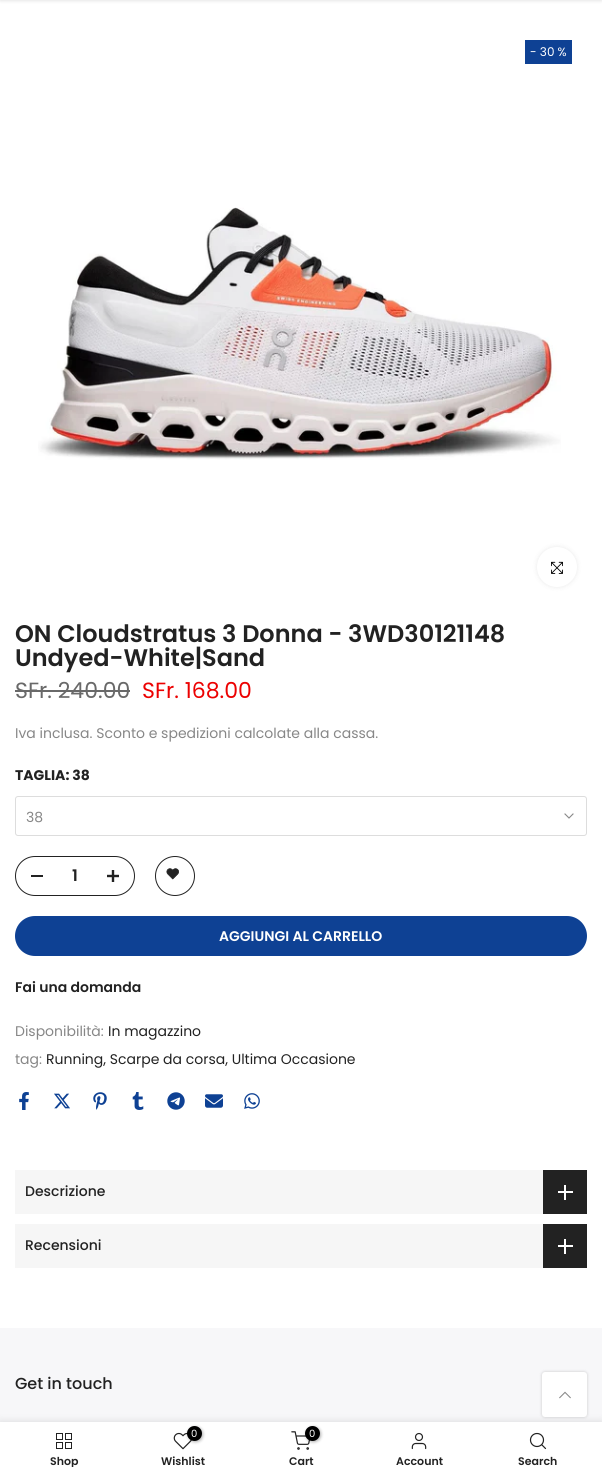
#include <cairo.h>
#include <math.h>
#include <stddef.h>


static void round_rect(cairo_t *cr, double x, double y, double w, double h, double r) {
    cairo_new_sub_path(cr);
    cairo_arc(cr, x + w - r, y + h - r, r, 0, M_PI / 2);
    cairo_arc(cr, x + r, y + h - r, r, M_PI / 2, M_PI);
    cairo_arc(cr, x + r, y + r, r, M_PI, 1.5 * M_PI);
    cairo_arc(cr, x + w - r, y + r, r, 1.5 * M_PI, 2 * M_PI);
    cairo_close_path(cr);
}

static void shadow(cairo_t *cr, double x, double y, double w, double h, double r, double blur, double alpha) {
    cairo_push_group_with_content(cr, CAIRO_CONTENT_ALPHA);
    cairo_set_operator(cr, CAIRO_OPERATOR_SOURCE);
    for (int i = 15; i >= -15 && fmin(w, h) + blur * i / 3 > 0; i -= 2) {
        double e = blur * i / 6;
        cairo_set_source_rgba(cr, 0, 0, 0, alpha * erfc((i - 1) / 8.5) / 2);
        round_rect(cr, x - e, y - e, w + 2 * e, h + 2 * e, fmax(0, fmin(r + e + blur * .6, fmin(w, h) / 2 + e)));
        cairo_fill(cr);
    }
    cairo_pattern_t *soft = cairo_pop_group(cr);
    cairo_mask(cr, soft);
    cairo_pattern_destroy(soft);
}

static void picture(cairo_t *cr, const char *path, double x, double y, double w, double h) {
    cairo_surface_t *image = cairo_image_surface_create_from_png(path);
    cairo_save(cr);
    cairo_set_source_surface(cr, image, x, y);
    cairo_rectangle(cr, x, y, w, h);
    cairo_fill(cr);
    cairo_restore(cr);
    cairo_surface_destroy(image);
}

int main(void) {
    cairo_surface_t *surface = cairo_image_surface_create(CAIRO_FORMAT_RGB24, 602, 1477);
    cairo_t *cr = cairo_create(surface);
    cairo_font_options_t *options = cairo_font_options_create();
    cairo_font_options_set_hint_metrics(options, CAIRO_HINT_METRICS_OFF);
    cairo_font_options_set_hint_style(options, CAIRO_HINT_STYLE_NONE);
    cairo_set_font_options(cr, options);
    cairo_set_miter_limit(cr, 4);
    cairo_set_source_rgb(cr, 1, 1, 1);
    cairo_paint(cr);
    cairo_set_source_rgb(cr, 0, 0, 0);
    shadow(cr, 0, -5, 602, 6, 0, 1.5, 0.1);
    cairo_set_source_rgb(cr, 0.055, 0.255, 0.58);
    cairo_rectangle(cr, 525, 40, 47, 24);
    cairo_fill(cr);
    cairo_select_font_face(cr, "Poppins", CAIRO_FONT_SLANT_NORMAL, CAIRO_FONT_WEIGHT_NORMAL);
    cairo_set_font_size(cr, 12);
    cairo_set_source_rgb(cr, 1, 1, 1);
    cairo_move_to(cr, 530, 56);
    cairo_show_text(cr, "- 30 %");
    picture(cr, "img1.png", 38, 207, 523, 253);
    cairo_set_source_rgb(cr, 0, 0, 0);
    shadow(cr, 537, 547, 40, 40, 20, 2.5, 0.09);
    cairo_set_source_rgb(cr, 1, 1, 1);
    cairo_arc(cr, 557, 567, 20, 0, 2 * M_PI);
    cairo_fill(cr);
    picture(cr, "img2.png", 551, 561, 12, 13);
    cairo_select_font_face(cr, "Poppins SemiBold", CAIRO_FONT_SLANT_NORMAL, CAIRO_FONT_WEIGHT_NORMAL);
    cairo_set_font_size(cr, 24);
    cairo_set_source_rgb(cr, 0.133, 0.133, 0.133);
    cairo_move_to(cr, 15, 642);
    cairo_show_text(cr, "ON Cloudstratus 3 Donna - 3WD30121148");
    cairo_move_to(cr, 15, 666);
    cairo_show_text(cr, "Undyed-White|Sand");
    cairo_select_font_face(cr, "Poppins", CAIRO_FONT_SLANT_NORMAL, CAIRO_FONT_WEIGHT_NORMAL);
    cairo_set_font_size(cr, 22);
    cairo_set_source_rgb(cr, 0.412, 0.412, 0.412);
    cairo_move_to(cr, 15, 698);
    cairo_show_text(cr, "SFr. 240.00");
    cairo_rectangle(cr, 15, 690, 115, 2);
    cairo_fill(cr);
    cairo_set_source_rgb(cr, 0.925, 0.004, 0.004);
    cairo_move_to(cr, 142, 698);
    cairo_show_text(cr, "SFr. 168.00");
    cairo_set_font_size(cr, 14);
    cairo_set_source_rgb(cr, 0.529, 0.529, 0.529);
    cairo_move_to(cr, 15, 738);
    cairo_show_text(cr, "Iva inclusa. Sconto e spedizioni calcolate alla cassa.");
    cairo_select_font_face(cr, "Poppins", CAIRO_FONT_SLANT_NORMAL, CAIRO_FONT_WEIGHT_BOLD);
    cairo_set_source_rgb(cr, 0.133, 0.133, 0.133);
    cairo_move_to(cr, 15, 780);
    cairo_show_text(cr, "TAGLIA: 38");
    round_rect(cr, 15.5, 796.5, 571, 39, 2.5);
    cairo_set_source_rgb(cr, 0.867, 0.867, 0.867);
    cairo_set_line_width(cr, 1);
    cairo_stroke(cr);
    cairo_select_font_face(cr, "Poppins", CAIRO_FONT_SLANT_NORMAL, CAIRO_FONT_WEIGHT_NORMAL);
    cairo_set_source_rgb(cr, 0.529, 0.529, 0.529);
    cairo_move_to(cr, 26, 822);
    cairo_show_text(cr, "38");
    cairo_new_path(cr);
    cairo_move_to(cr, 573, 814);
    cairo_line_to(cr, 569, 818);
    cairo_line_to(cr, 565, 814);
    cairo_set_line_width(cr, 1.1);
    cairo_set_line_cap(cr, CAIRO_LINE_CAP_SQUARE);
    cairo_stroke(cr);
    round_rect(cr, 15.5, 856.5, 119, 39, 19.5);
    cairo_set_source_rgb(cr, 0.133, 0.133, 0.133);
    cairo_set_line_width(cr, 1);
    cairo_set_line_cap(cr, CAIRO_LINE_CAP_BUTT);
    cairo_stroke(cr);
    cairo_rectangle(cr, 31, 875, 12, 2);
    cairo_fill(cr);
    cairo_select_font_face(cr, "Poppins SemiBold", CAIRO_FONT_SLANT_NORMAL, CAIRO_FONT_WEIGHT_NORMAL);
    cairo_set_font_size(cr, 16);
    cairo_move_to(cr, 72, 881);
    cairo_show_text(cr, "1");
    picture(cr, "img3.png", 107, 870, 12, 12);
    cairo_arc(cr, 175, 876, 19.5, 0, 2 * M_PI);
    cairo_stroke(cr);
    picture(cr, "img4.png", 166, 868, 13, 12);
    cairo_set_source_rgb(cr, 0.055, 0.255, 0.58);
    round_rect(cr, 15, 916, 572, 40, 20);
    cairo_fill(cr);
    cairo_set_font_size(cr, 14);
    cairo_set_source_rgb(cr, 1, 1, 1);
    cairo_move_to(cr, 219, 941);
    cairo_show_text(cr, "AGGIUNGI AL CARRELLO");
    cairo_set_source_rgb(cr, 0.133, 0.133, 0.133);
    cairo_move_to(cr, 15, 992);
    cairo_show_text(cr, "Fai una domanda");
    cairo_select_font_face(cr, "Poppins", CAIRO_FONT_SLANT_NORMAL, CAIRO_FONT_WEIGHT_NORMAL);
    cairo_set_source_rgb(cr, 0.529, 0.529, 0.529);
    cairo_move_to(cr, 15, 1036);
    cairo_show_text(cr, "Disponibilità:");
    cairo_set_source_rgb(cr, 0.133, 0.133, 0.133);
    cairo_move_to(cr, 108, 1036);
    cairo_show_text(cr, "In magazzino");
    cairo_set_source_rgb(cr, 0.529, 0.529, 0.529);
    cairo_move_to(cr, 15, 1064);
    cairo_show_text(cr, "tag:");
    cairo_set_source_rgb(cr, 0.133, 0.133, 0.133);
    cairo_move_to(cr, 46, 1064);
    cairo_show_text(cr, "Running, Scarpe da corsa, Ultima Occasione");
    picture(cr, "img5.png", 19, 1092, 10, 18);
    picture(cr, "img6.png", 54, 1093, 16, 16);
    picture(cr, "img7.png", 93, 1092, 14, 18);
    picture(cr, "img8.png", 132, 1092, 12, 18);
    picture(cr, "img9.png", 167, 1092, 18, 18);
    picture(cr, "img10.png", 205, 1094, 18, 14);
    picture(cr, "img11.png", 244, 1093, 16, 16);
    cairo_set_source_rgb(cr, 0.961, 0.961, 0.961);
    cairo_rectangle(cr, 15, 1170, 528, 44);
    cairo_fill(cr);
    cairo_select_font_face(cr, "Poppins Medium", CAIRO_FONT_SLANT_NORMAL, CAIRO_FONT_WEIGHT_NORMAL);
    cairo_set_source_rgb(cr, 0.133, 0.133, 0.133);
    cairo_move_to(cr, 25, 1196);
    cairo_show_text(cr, "Descrizione");
    cairo_rectangle(cr, 543, 1170, 44, 44);
    cairo_fill(cr);
    cairo_set_source_rgb(cr, 1, 1, 1);
    cairo_rectangle(cr, 564, 1185, 2, 15);
    cairo_fill(cr);
    cairo_rectangle(cr, 558, 1191, 15, 2);
    cairo_fill(cr);
    cairo_set_source_rgb(cr, 0.961, 0.961, 0.961);
    cairo_rectangle(cr, 15, 1224, 528, 44);
    cairo_fill(cr);
    cairo_set_source_rgb(cr, 0.133, 0.133, 0.133);
    cairo_move_to(cr, 25, 1250);
    cairo_show_text(cr, "Recensioni");
    cairo_rectangle(cr, 543, 1224, 44, 44);
    cairo_fill(cr);
    cairo_set_source_rgb(cr, 1, 1, 1);
    cairo_rectangle(cr, 564, 1239, 2, 15);
    cairo_fill(cr);
    cairo_rectangle(cr, 558, 1245, 15, 2);
    cairo_fill(cr);
    cairo_set_source_rgb(cr, 0.965, 0.965, 0.973);
    cairo_rectangle(cr, 0, 1328, 602, 94);
    cairo_fill(cr);
    cairo_set_font_size(cr, 16);
    cairo_set_source_rgb(cr, 0.133, 0.133, 0.133);
    cairo_move_to(cr, 15, 1389);
    cairo_show_text(cr, "Get in touch");
    cairo_set_source_rgb(cr, 0, 0, 0);
    shadow(cr, 0, 1422, 602, 55, 0, 4.5, 0.12);
    cairo_set_source_rgb(cr, 1, 1, 1);
    cairo_rectangle(cr, 0, 1422, 602, 55);
    cairo_fill(cr);
    cairo_set_source_rgb(cr, 0, 0, 0);
    shadow(cr, 542, 1372, 45, 45, 3, 1.5, 0.2);
    cairo_set_source_rgb(cr, 1, 1, 1);
    round_rect(cr, 542, 1372, 45, 45, 3);
    cairo_fill(cr);
    picture(cr, "img12.png", 559, 1391, 12, 8);
    picture(cr, "img13.png", 56, 1433, 16, 16);
    cairo_save(cr);
    cairo_rectangle(cr, 15, 1456, 98, 11);
    cairo_clip(cr);
    cairo_select_font_face(cr, "Poppins SemiBold", CAIRO_FONT_SLANT_NORMAL, CAIRO_FONT_WEIGHT_NORMAL);
    cairo_set_font_size(cr, 11);
    cairo_set_source_rgb(cr, 0.133, 0.133, 0.133);
    cairo_move_to(cr, 50, 1465);
    cairo_show_text(cr, "Shop");
    cairo_restore(cr);
    picture(cr, "img14.png", 173, 1432, 19, 18);
    cairo_set_source_rgb(cr, 0, 0, 0);
    shadow(cr, 188, 1427, 15, 15, 7.5, 1.5, 0.3);
    cairo_set_source_rgb(cr, 0, 0, 0);
    cairo_arc(cr, 194.5, 1433.5, 7.5, 0, 2 * M_PI);
    cairo_fill(cr);
    cairo_select_font_face(cr, "Poppins", CAIRO_FONT_SLANT_NORMAL, CAIRO_FONT_WEIGHT_NORMAL);
    cairo_set_font_size(cr, 10);
    cairo_set_source_rgb(cr, 1, 1, 1);
    cairo_move_to(cr, 191, 1437);
    cairo_show_text(cr, "0");
    cairo_select_font_face(cr, "Poppins SemiBold", CAIRO_FONT_SLANT_NORMAL, CAIRO_FONT_WEIGHT_NORMAL);
    cairo_set_font_size(cr, 11);
    cairo_set_source_rgb(cr, 0.133, 0.133, 0.133);
    cairo_move_to(cr, 161, 1465);
    cairo_show_text(cr, "Wishlist");
    picture(cr, "img15.png", 291, 1431, 19, 19);
    cairo_set_source_rgb(cr, 0, 0, 0);
    shadow(cr, 306, 1427, 15, 15, 7.5, 1.5, 0.3);
    cairo_set_source_rgb(cr, 0, 0, 0);
    cairo_arc(cr, 312.5, 1433.5, 7.5, 0, 2 * M_PI);
    cairo_fill(cr);
    cairo_select_font_face(cr, "Poppins", CAIRO_FONT_SLANT_NORMAL, CAIRO_FONT_WEIGHT_NORMAL);
    cairo_set_font_size(cr, 10);
    cairo_set_source_rgb(cr, 1, 1, 1);
    cairo_move_to(cr, 309, 1437);
    cairo_show_text(cr, "0");
    cairo_select_font_face(cr, "Poppins SemiBold", CAIRO_FONT_SLANT_NORMAL, CAIRO_FONT_WEIGHT_NORMAL);
    cairo_set_font_size(cr, 11);
    cairo_set_source_rgb(cr, 0.133, 0.133, 0.133);
    cairo_move_to(cr, 289, 1465);
    cairo_show_text(cr, "Cart");
    picture(cr, "img16.png", 411, 1432, 16, 18);
    cairo_move_to(cr, 396, 1465);
    cairo_show_text(cr, "Account");
    cairo_new_path(cr);
    cairo_arc(cr, 537, 1440, 6.5, 0, 2 * M_PI);
    cairo_set_line_width(cr, 1.2);
    cairo_stroke(cr);
    cairo_new_path(cr);
    cairo_move_to(cr, 545.5, 1448.5);
    cairo_line_to(cr, 542, 1445);
    cairo_set_line_cap(cr, CAIRO_LINE_CAP_ROUND);
    cairo_set_line_join(cr, CAIRO_LINE_JOIN_ROUND);
    cairo_stroke(cr);
    cairo_move_to(cr, 518, 1465);
    cairo_show_text(cr, "Search");
    cairo_surface_write_to_png(surface, "page.png");
    cairo_font_options_destroy(options);
    cairo_destroy(cr);
    cairo_surface_destroy(surface);
    return 0;
}
